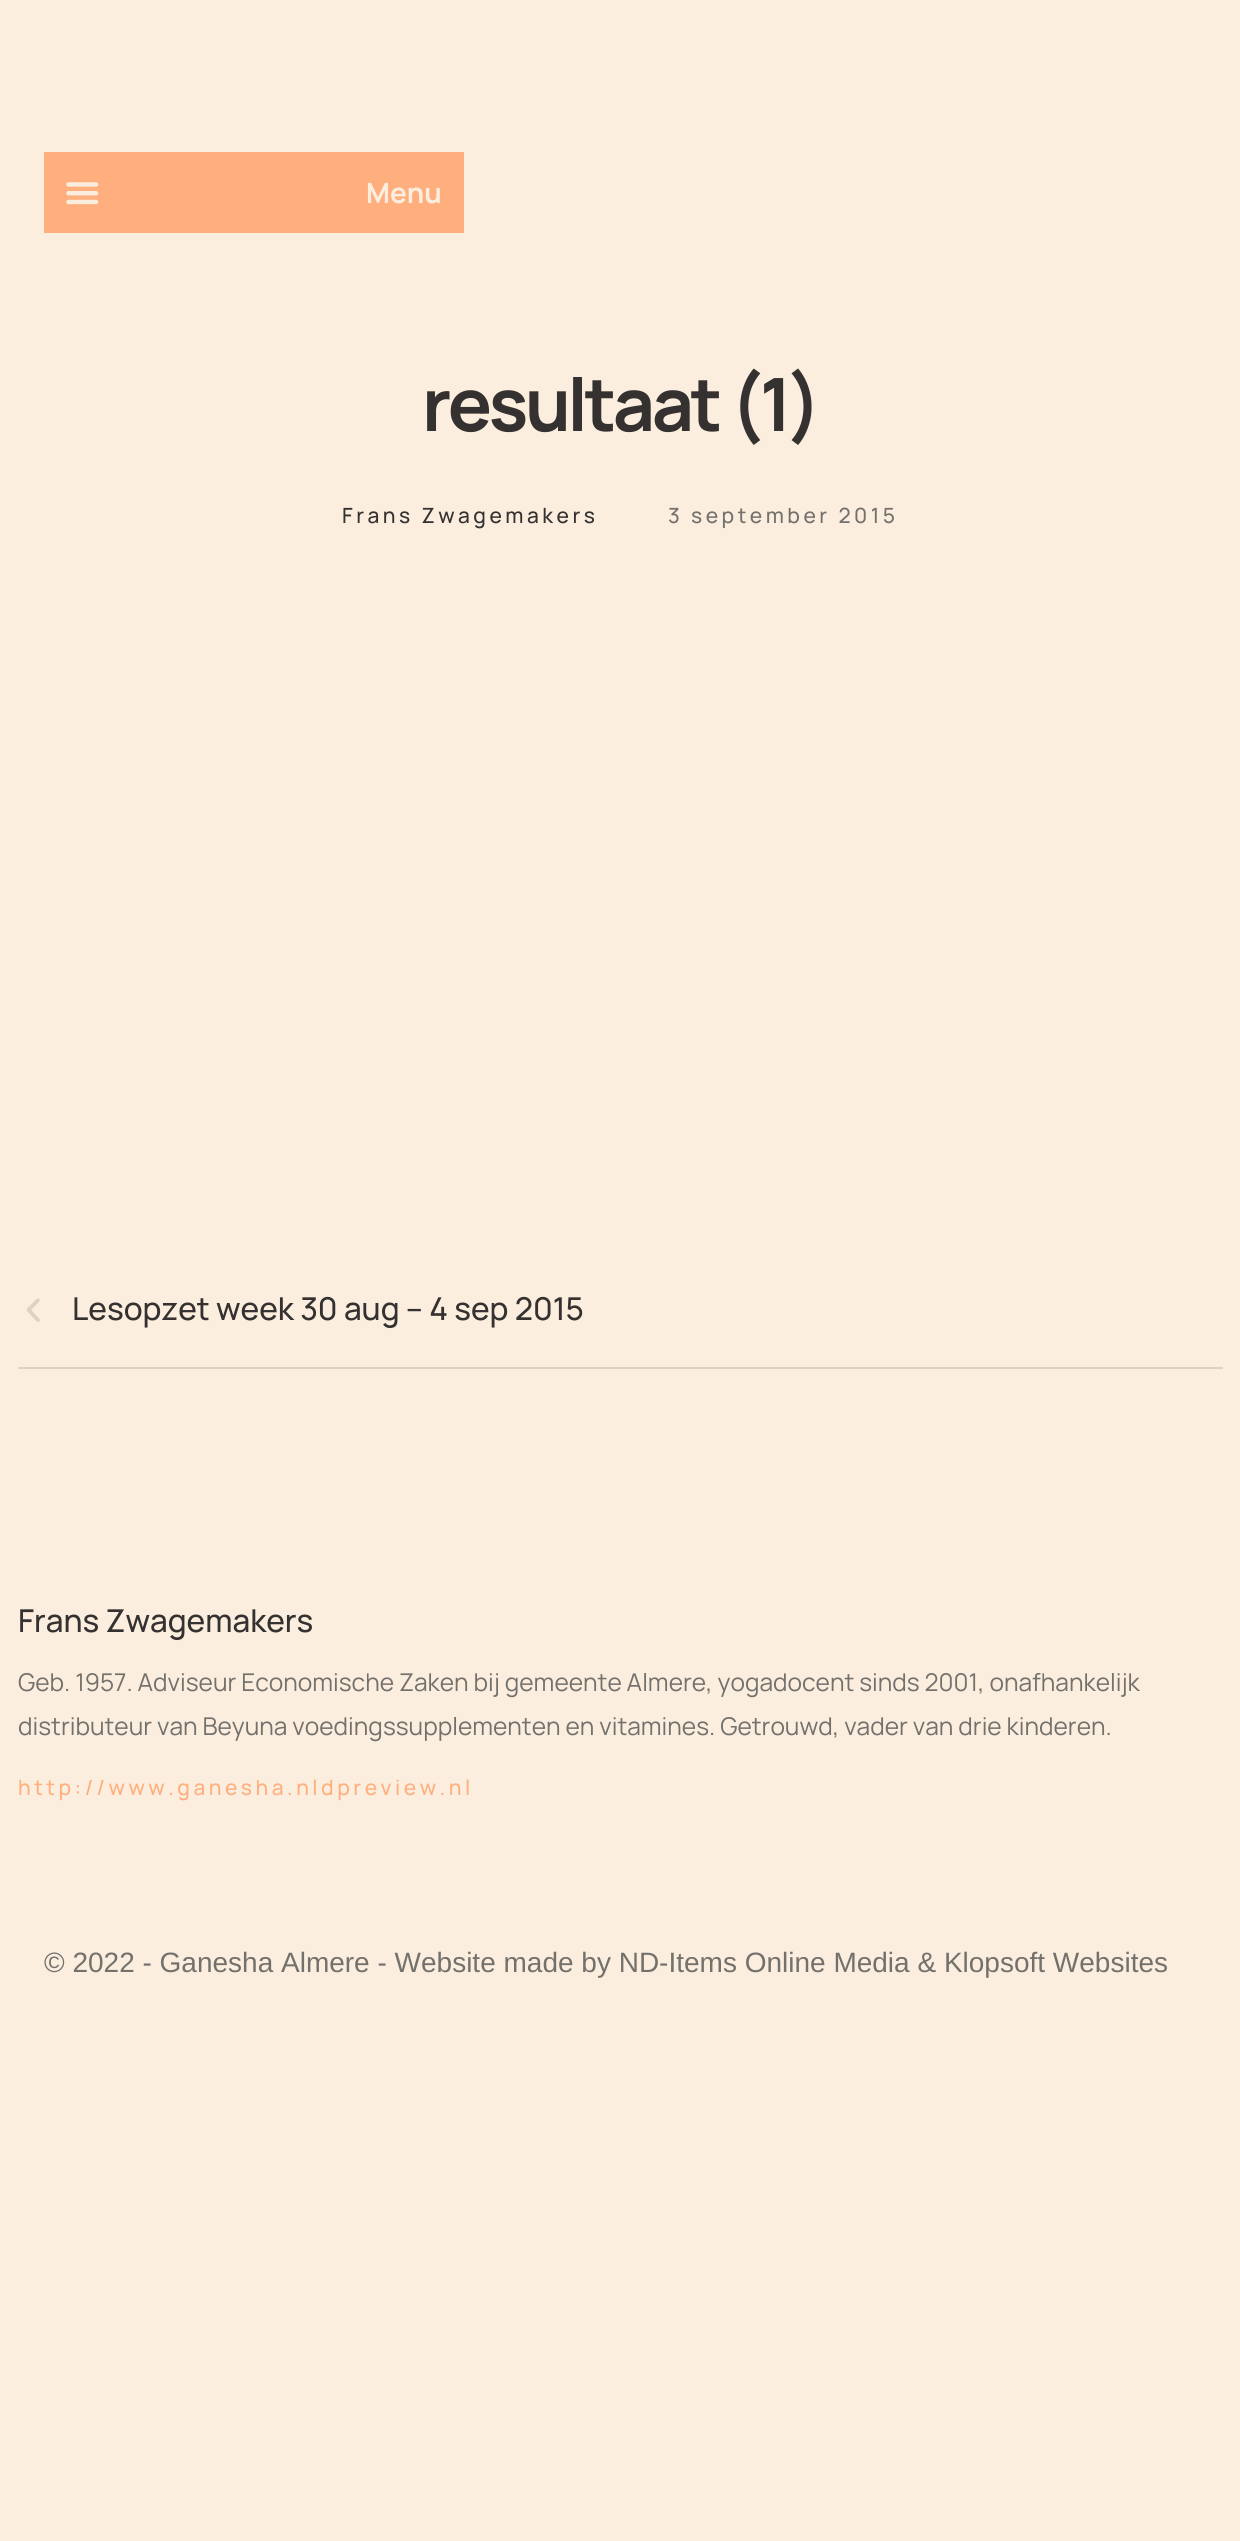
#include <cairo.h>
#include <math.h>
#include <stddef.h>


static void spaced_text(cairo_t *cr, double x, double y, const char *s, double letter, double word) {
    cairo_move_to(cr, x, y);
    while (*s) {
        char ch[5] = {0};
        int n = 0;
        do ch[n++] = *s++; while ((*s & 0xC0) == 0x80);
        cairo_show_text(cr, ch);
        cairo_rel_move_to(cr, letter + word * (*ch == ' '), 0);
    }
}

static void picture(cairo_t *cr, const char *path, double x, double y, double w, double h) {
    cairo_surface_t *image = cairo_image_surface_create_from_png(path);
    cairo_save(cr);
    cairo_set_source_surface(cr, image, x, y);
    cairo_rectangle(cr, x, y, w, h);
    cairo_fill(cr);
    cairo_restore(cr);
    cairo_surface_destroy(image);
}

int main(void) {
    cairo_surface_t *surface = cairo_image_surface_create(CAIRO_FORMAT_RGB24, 1240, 2541);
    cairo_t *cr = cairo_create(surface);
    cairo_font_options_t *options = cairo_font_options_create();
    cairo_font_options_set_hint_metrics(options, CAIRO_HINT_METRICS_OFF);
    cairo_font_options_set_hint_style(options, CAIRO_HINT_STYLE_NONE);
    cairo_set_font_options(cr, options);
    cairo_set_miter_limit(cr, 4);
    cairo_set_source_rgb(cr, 0.984, 0.933, 0.871);
    cairo_paint(cr);
    cairo_set_source_rgb(cr, 1, 0.686, 0.494);
    cairo_rectangle(cr, 44, 152, 420, 81);
    cairo_fill(cr);
    picture(cr, "img1.png", 66, 182, 33, 23);
    cairo_select_font_face(cr, "Manrope", CAIRO_FONT_SLANT_NORMAL, CAIRO_FONT_WEIGHT_BOLD);
    cairo_set_font_size(cr, 28);
    cairo_set_source_rgb(cr, 0.984, 0.933, 0.871);
    cairo_move_to(cr, 366, 203);
    cairo_show_text(cr, "Menu");
    cairo_set_font_size(cr, 73.5);
    cairo_set_source_rgb(cr, 0.204, 0.192, 0.188);
    spaced_text(cr, 422, 431, "resultaat (1)", -3.5, 0);
    cairo_select_font_face(cr, "Manrope Medium", CAIRO_FONT_SLANT_NORMAL, CAIRO_FONT_WEIGHT_NORMAL);
    cairo_set_font_size(cr, 21);
    spaced_text(cr, 342, 523, "Frans Zwagemakers", 3.5, 0);
    cairo_set_source_rgb(cr, 0.455, 0.443, 0.424);
    spaced_text(cr, 668, 523, "3 september 2015", 3.5, 0);
    picture(cr, "img2.png", 26, 1298, 14, 24);
    cairo_set_font_size(cr, 31.5);
    cairo_set_source_rgb(cr, 0.204, 0.192, 0.188);
    cairo_move_to(cr, 72, 1320);
    cairo_show_text(cr, "Lesopzet week 30 aug – 4 sep 2015");
    cairo_set_source_rgb(cr, 0.871, 0.824, 0.769);
    cairo_rectangle(cr, 18, 1367, 1205, 2);
    cairo_fill(cr);
    cairo_set_source_rgb(cr, 0.204, 0.192, 0.188);
    cairo_move_to(cr, 18, 1632);
    cairo_show_text(cr, "Frans Zwagemakers");
    cairo_select_font_face(cr, "Manrope", CAIRO_FONT_SLANT_NORMAL, CAIRO_FONT_WEIGHT_NORMAL);
    cairo_set_font_size(cr, 24.5);
    cairo_set_source_rgb(cr, 0.455, 0.443, 0.424);
    cairo_move_to(cr, 18, 1691);
    cairo_show_text(cr, "Geb. 1957. Adviseur Economische Zaken bij gemeente Almere, yogadocent sinds 2001, onafhankelijk");
    cairo_move_to(cr, 18, 1735);
    cairo_show_text(cr, "distributeur van Beyuna voedingssupplementen en vitamines. Getrouwd, vader van drie kinderen.");
    cairo_select_font_face(cr, "Manrope Medium", CAIRO_FONT_SLANT_NORMAL, CAIRO_FONT_WEIGHT_NORMAL);
    cairo_set_font_size(cr, 21);
    cairo_set_source_rgb(cr, 1, 0.686, 0.494);
    spaced_text(cr, 18, 1795, "http://www.ganesha.nldpreview.nl", 3.5, 0);
    cairo_select_font_face(cr, "Liberation Sans", CAIRO_FONT_SLANT_NORMAL, CAIRO_FONT_WEIGHT_NORMAL);
    cairo_set_font_size(cr, 28);
    cairo_set_source_rgb(cr, 0.455, 0.443, 0.424);
    cairo_move_to(cr, 44, 1972);
    cairo_show_text(cr, "© 2022 - Ganesha Almere - Website made by ND-Items Online Media & Klopsoft Websites");
    cairo_surface_write_to_png(surface, "page.png");
    cairo_font_options_destroy(options);
    cairo_destroy(cr);
    cairo_surface_destroy(surface);
    return 0;
}
